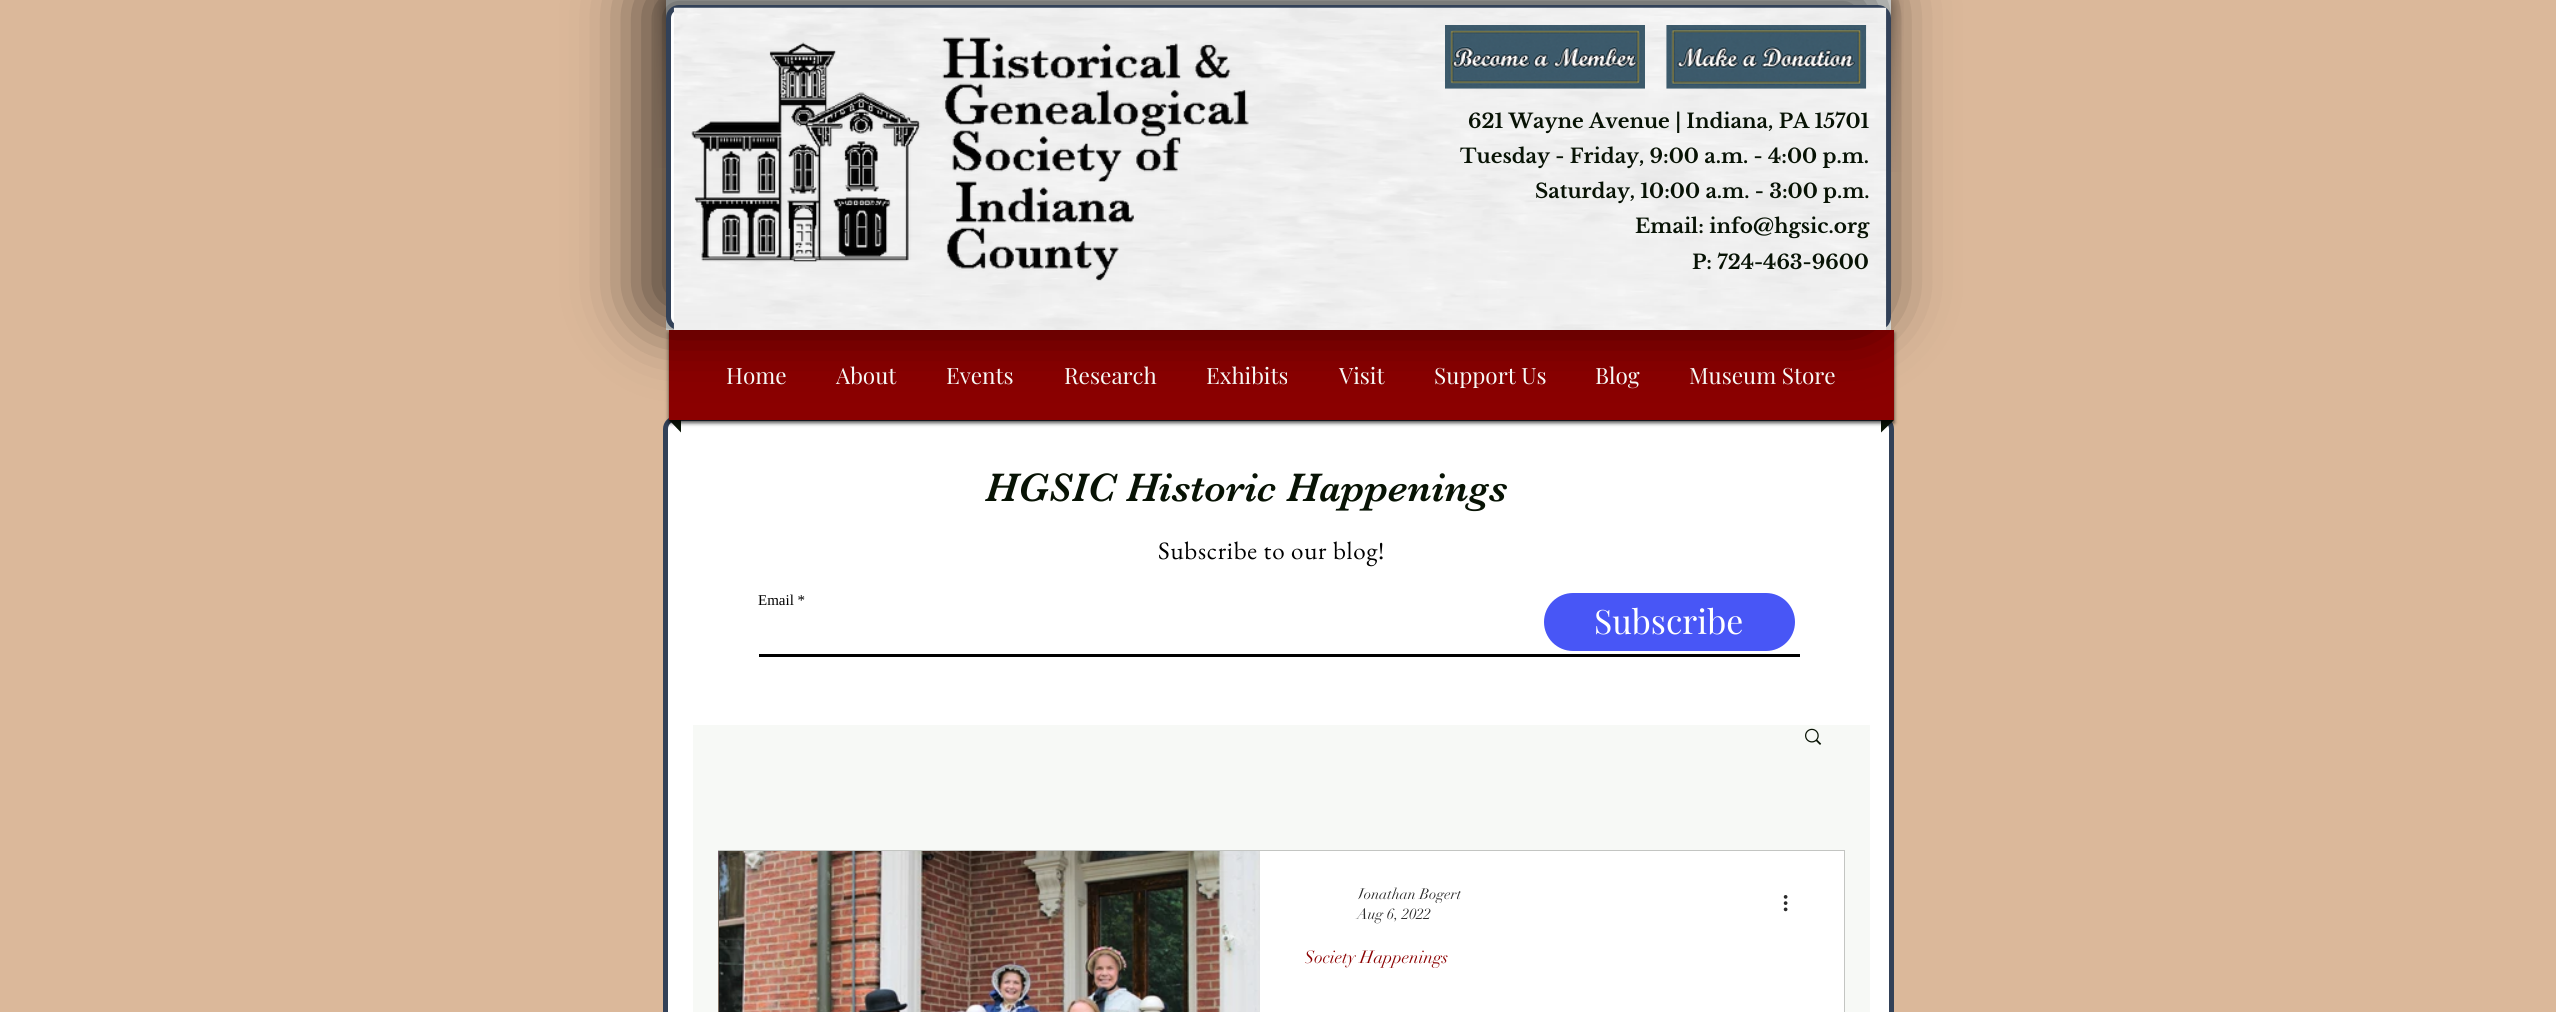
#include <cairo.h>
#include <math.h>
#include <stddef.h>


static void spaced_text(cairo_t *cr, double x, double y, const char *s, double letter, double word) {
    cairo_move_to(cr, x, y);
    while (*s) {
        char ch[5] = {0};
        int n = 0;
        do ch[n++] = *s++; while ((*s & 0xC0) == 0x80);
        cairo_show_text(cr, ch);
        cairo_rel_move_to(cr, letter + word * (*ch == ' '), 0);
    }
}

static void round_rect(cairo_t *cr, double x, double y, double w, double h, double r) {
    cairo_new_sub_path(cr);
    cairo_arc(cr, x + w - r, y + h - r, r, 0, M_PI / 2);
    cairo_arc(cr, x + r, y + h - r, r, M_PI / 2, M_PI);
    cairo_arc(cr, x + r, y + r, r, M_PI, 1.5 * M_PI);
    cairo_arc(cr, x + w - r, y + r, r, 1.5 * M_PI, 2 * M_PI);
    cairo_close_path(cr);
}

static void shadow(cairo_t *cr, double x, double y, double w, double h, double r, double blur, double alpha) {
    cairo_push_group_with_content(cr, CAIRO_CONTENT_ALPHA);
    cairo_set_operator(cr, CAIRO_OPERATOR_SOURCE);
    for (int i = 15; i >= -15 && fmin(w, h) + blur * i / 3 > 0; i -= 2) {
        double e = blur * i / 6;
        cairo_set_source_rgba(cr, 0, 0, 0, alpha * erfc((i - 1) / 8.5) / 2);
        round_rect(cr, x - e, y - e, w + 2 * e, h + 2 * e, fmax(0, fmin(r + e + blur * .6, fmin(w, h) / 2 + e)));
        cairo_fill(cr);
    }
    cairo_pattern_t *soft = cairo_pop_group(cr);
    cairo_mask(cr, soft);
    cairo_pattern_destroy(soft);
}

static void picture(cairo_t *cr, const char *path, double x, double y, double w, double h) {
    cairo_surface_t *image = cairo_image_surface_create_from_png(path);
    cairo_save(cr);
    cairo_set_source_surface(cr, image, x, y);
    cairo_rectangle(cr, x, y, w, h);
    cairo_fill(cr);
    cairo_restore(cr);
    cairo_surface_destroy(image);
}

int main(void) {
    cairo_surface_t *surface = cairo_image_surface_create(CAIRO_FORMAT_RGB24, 2556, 1012);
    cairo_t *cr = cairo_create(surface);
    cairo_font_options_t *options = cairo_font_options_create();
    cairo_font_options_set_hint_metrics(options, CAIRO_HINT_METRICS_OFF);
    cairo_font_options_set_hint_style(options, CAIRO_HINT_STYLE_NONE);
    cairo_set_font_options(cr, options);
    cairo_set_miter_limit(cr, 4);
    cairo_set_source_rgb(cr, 0.859, 0.722, 0.604);
    cairo_paint(cr);
    picture(cr, "img1.png", 654, 0, 12, 168);
    cairo_set_source_rgb(cr, 1, 1, 1);
    round_rect(cr, 665.5, 418.5, 1226, 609, 10.5);
    cairo_fill_preserve(cr);
    cairo_set_source_rgb(cr, 0.196, 0.255, 0.345);
    cairo_set_line_width(cr, 5);
    cairo_stroke(cr);
    cairo_set_source_rgb(cr, 0.035, 0.078, 0.02);
    cairo_new_path(cr);
    cairo_move_to(cr, 669, 420);
    cairo_line_to(cr, 681, 420);
    cairo_line_to(cr, 681, 432.5);
    cairo_close_path(cr);
    cairo_fill(cr);
    cairo_new_path(cr);
    cairo_move_to(cr, 1881, 420);
    cairo_line_to(cr, 1894, 420);
    cairo_line_to(cr, 1881, 432.5);
    cairo_close_path(cr);
    cairo_fill(cr);
    cairo_set_source_rgb(cr, 0, 0, 0);
    shadow(cr, 669, 333, 1225, 90, 0, 2, 0.7);
    cairo_set_source_rgb(cr, 0.965, 0.976, 0.961);
    cairo_rectangle(cr, 666, 0, 1225, 330);
    cairo_fill(cr);
    picture(cr, "img2.png", 1891, 0, 13, 172);
    cairo_set_source_rgb(cr, 0.545, 0, 0);
    cairo_rectangle(cr, 669, 330, 1225, 90);
    cairo_fill(cr);
    cairo_set_source_rgb(cr, 0, 0, 0);
    shadow(cr, 636, -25, 1250, 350, 25, 31, 0.6);
    cairo_set_source_rgb(cr, 1, 1, 1);
    round_rect(cr, 668.5, 7.5, 1220, 320, 10.5);
    cairo_fill_preserve(cr);
    cairo_set_source_rgb(cr, 0.196, 0.255, 0.345);
    cairo_stroke(cr);
    picture(cr, "img3.png", 673, 7, 1214, 323);
    picture(cr, "img4.png", 691, 37, 558, 244);
    picture(cr, "img5.png", 1445, 25, 200, 64);
    picture(cr, "img6.png", 1666, 25, 201, 64);
    cairo_select_font_face(cr, "Libre Baskerville", CAIRO_FONT_SLANT_NORMAL, CAIRO_FONT_WEIGHT_BOLD);
    cairo_set_font_size(cr, 20);
    cairo_set_source_rgb(cr, 0.035, 0.078, 0.02);
    cairo_move_to(cr, 1468, 128);
    cairo_show_text(cr, "621 Wayne Avenue | Indiana, PA 15701");
    cairo_move_to(cr, 1460, 163);
    cairo_show_text(cr, "Tuesday - Friday, 9:00 a.m. - 4:00 p.m.");
    cairo_move_to(cr, 1535, 198);
    cairo_show_text(cr, "Saturday, 10:00 a.m. - 3:00 p.m.");
    cairo_move_to(cr, 1635, 233);
    cairo_show_text(cr, "Email: info@hgsic.org");
    cairo_move_to(cr, 1692, 269);
    cairo_show_text(cr, "P: 724-463-9600");
    cairo_select_font_face(cr, "Playfair Display", CAIRO_FONT_SLANT_NORMAL, CAIRO_FONT_WEIGHT_NORMAL);
    cairo_set_font_size(cr, 22.5);
    cairo_set_source_rgb(cr, 0.965, 0.976, 0.961);
    cairo_move_to(cr, 726, 384);
    cairo_show_text(cr, "Home");
    cairo_move_to(cr, 836, 384);
    cairo_show_text(cr, "About");
    cairo_move_to(cr, 946, 384);
    cairo_show_text(cr, "Events");
    cairo_move_to(cr, 1064, 384);
    cairo_show_text(cr, "Research");
    cairo_move_to(cr, 1206, 384);
    cairo_show_text(cr, "Exhibits");
    cairo_move_to(cr, 1339, 384);
    cairo_show_text(cr, "Visit");
    cairo_move_to(cr, 1434, 384);
    cairo_show_text(cr, "Support Us");
    cairo_move_to(cr, 1595, 384);
    cairo_show_text(cr, "Blog");
    cairo_move_to(cr, 1689, 384);
    cairo_show_text(cr, "Museum Store");
    cairo_select_font_face(cr, "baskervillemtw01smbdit", CAIRO_FONT_SLANT_NORMAL, CAIRO_FONT_WEIGHT_NORMAL);
    cairo_set_font_size(cr, 41.25);
    cairo_set_source_rgb(cr, 0.035, 0.078, 0.02);
    cairo_move_to(cr, 985, 501);
    cairo_show_text(cr, "HGSIC Historic Happenings");
    cairo_select_font_face(cr, "EB Garamond", CAIRO_FONT_SLANT_NORMAL, CAIRO_FONT_WEIGHT_NORMAL);
    cairo_set_font_size(cr, 25);
    cairo_set_source_rgb(cr, 0, 0, 0);
    spaced_text(cr, 1158, 559, "Subscribe to our blog!", 0.75, 0);
    cairo_select_font_face(cr, "Liberation Serif", CAIRO_FONT_SLANT_NORMAL, CAIRO_FONT_WEIGHT_NORMAL);
    cairo_set_font_size(cr, 15);
    cairo_move_to(cr, 758, 605);
    cairo_show_text(cr, "Email *");
    cairo_rectangle(cr, 759, 654, 1041, 3);
    cairo_fill(cr);
    cairo_set_source_rgb(cr, 0.282, 0.337, 0.961);
    round_rect(cr, 1544, 593, 251, 58, 29);
    cairo_fill(cr);
    cairo_select_font_face(cr, "Playfair Display", CAIRO_FONT_SLANT_NORMAL, CAIRO_FONT_WEIGHT_NORMAL);
    cairo_set_font_size(cr, 33.75);
    cairo_set_source_rgb(cr, 1, 1, 1);
    cairo_move_to(cr, 1594, 634);
    cairo_show_text(cr, "Subscribe");
    cairo_set_source_rgb(cr, 0.965, 0.976, 0.961);
    cairo_rectangle(cr, 693, 725, 1177, 287);
    cairo_fill(cr);
    picture(cr, "img7.png", 1805, 728, 17, 17);
    cairo_rectangle(cr, 718.5, 850.5, 1126, 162);
    cairo_set_source_rgb(cr, 0.765, 0.773, 0.761);
    cairo_set_line_width(cr, 1);
    cairo_stroke(cr);
    picture(cr, "img8.png", 718, 851, 1, 161);
    picture(cr, "img9.png", 719, 851, 541, 161);
    cairo_set_source_rgb(cr, 1, 1, 1);
    cairo_rectangle(cr, 1260, 851, 584, 161);
    cairo_fill(cr);
    cairo_save(cr);
    cairo_rectangle(cr, 1358, 885, 103, 18);
    cairo_clip(cr);
    cairo_select_font_face(cr, "didot", CAIRO_FONT_SLANT_NORMAL, CAIRO_FONT_WEIGHT_NORMAL);
    cairo_set_font_size(cr, 15);
    cairo_set_source_rgb(cr, 0.165, 0.165, 0.165);
    cairo_move_to(cr, 1357, 899);
    cairo_show_text(cr, "Jonathan Bogert");
    cairo_restore(cr);
    cairo_select_font_face(cr, "didot", CAIRO_FONT_SLANT_NORMAL, CAIRO_FONT_WEIGHT_NORMAL);
    cairo_set_font_size(cr, 15);
    cairo_set_source_rgb(cr, 0.165, 0.165, 0.165);
    cairo_move_to(cr, 1357, 919);
    cairo_show_text(cr, "Aug 6, 2022");
    picture(cr, "img10.png", 1783, 895, 5, 17);
    cairo_save(cr);
    cairo_rectangle(cr, 1305, 946, 144, 22);
    cairo_clip(cr);
    cairo_set_font_size(cr, 17.5);
    cairo_set_source_rgb(cr, 0.545, 0, 0);
    cairo_move_to(cr, 1304, 963);
    cairo_show_text(cr, "Society Happenings");
    cairo_restore(cr);
    cairo_surface_write_to_png(surface, "page.png");
    cairo_font_options_destroy(options);
    cairo_destroy(cr);
    cairo_surface_destroy(surface);
    return 0;
}
